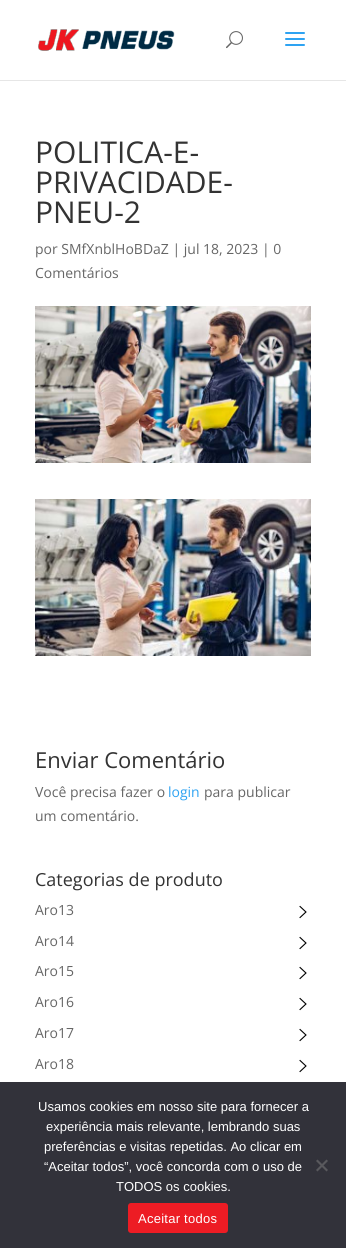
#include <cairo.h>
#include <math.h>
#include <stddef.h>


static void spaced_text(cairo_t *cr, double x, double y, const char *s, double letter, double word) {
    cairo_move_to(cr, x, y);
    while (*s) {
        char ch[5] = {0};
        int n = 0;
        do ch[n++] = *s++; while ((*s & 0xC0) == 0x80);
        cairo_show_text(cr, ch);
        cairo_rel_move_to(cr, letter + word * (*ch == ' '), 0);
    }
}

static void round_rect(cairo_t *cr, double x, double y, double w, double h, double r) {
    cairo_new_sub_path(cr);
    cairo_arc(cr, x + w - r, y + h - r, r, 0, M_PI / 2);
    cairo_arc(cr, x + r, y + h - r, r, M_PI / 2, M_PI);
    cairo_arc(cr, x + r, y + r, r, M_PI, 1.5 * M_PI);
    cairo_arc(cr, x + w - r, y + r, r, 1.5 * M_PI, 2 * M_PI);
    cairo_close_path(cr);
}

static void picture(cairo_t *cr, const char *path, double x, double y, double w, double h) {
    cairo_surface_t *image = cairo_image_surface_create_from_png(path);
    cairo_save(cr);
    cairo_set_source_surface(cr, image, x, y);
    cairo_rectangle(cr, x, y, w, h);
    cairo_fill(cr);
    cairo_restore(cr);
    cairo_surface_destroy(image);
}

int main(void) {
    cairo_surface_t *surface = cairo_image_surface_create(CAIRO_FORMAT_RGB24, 346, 1248);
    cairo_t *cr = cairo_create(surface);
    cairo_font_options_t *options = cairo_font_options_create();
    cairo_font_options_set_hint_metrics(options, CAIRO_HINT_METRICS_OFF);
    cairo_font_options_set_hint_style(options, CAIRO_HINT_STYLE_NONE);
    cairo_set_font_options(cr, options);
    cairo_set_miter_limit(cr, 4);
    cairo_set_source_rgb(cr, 1, 1, 1);
    cairo_paint(cr);
    cairo_set_source_rgb(cr, 0.902, 0.902, 0.902);
    cairo_rectangle(cr, 0, 80, 346, 1);
    cairo_fill(cr);
    picture(cr, "img1.png", 38, 29, 137, 22);
    picture(cr, "img2.png", 226, 31, 17, 18);
    picture(cr, "img3.png", 285, 32, 20, 14);
    cairo_select_font_face(cr, "Open Sans", CAIRO_FONT_SLANT_NORMAL, CAIRO_FONT_WEIGHT_NORMAL);
    cairo_set_font_size(cr, 30);
    cairo_set_source_rgb(cr, 0.2, 0.2, 0.2);
    cairo_move_to(cr, 35, 163);
    cairo_show_text(cr, "POLITICA-E-");
    cairo_move_to(cr, 35, 193);
    cairo_show_text(cr, "PRIVACIDADE-");
    cairo_move_to(cr, 35, 223);
    cairo_show_text(cr, "PNEU-2");
    cairo_set_font_size(cr, 14);
    cairo_set_source_rgb(cr, 0.4, 0.4, 0.4);
    cairo_move_to(cr, 35, 254);
    cairo_show_text(cr, "por SMfXnblHoBDaZ | jul 18, 2023 | 0");
    cairo_move_to(cr, 35, 278);
    cairo_show_text(cr, "Comentários");
    picture(cr, "img4.png", 35, 306, 276, 157);
    picture(cr, "img5.png", 35, 499, 276, 157);
    cairo_set_font_size(cr, 22);
    cairo_set_source_rgb(cr, 0.2, 0.2, 0.2);
    cairo_move_to(cr, 35, 768);
    cairo_show_text(cr, "Enviar Comentário");
    cairo_set_font_size(cr, 14);
    cairo_set_source_rgb(cr, 0.4, 0.4, 0.4);
    cairo_move_to(cr, 35, 797);
    cairo_show_text(cr, "Você precisa fazer o");
    cairo_set_source_rgb(cr, 0.18, 0.639, 0.949);
    cairo_move_to(cr, 168, 797);
    cairo_show_text(cr, "login");
    cairo_set_source_rgb(cr, 0.4, 0.4, 0.4);
    cairo_move_to(cr, 204, 797);
    cairo_show_text(cr, "para publicar");
    cairo_move_to(cr, 35, 821);
    cairo_show_text(cr, "um comentário.");
    cairo_set_font_size(cr, 18);
    cairo_set_source_rgb(cr, 0.2, 0.2, 0.2);
    cairo_move_to(cr, 35, 886);
    cairo_show_text(cr, "Categorias de produto");
    cairo_set_font_size(cr, 14);
    cairo_set_source_rgb(cr, 0.4, 0.4, 0.4);
    cairo_move_to(cr, 35, 915);
    cairo_show_text(cr, "Aro13");
    picture(cr, "img6.png", 299, 905, 8, 14);
    cairo_move_to(cr, 35, 946);
    cairo_show_text(cr, "Aro14");
    picture(cr, "img6.png", 299, 936, 8, 14);
    cairo_move_to(cr, 35, 976);
    cairo_show_text(cr, "Aro15");
    picture(cr, "img6.png", 299, 966, 8, 14);
    cairo_move_to(cr, 35, 1007);
    cairo_show_text(cr, "Aro16");
    picture(cr, "img6.png", 299, 997, 8, 14);
    cairo_move_to(cr, 35, 1038);
    cairo_show_text(cr, "Aro17");
    picture(cr, "img6.png", 299, 1028, 8, 14);
    cairo_move_to(cr, 35, 1069);
    cairo_show_text(cr, "Aro18");
    picture(cr, "img6.png", 299, 1059, 8, 14);
    cairo_set_source_rgb(cr, 0.196, 0.196, 0.227);
    cairo_rectangle(cr, 0, 1082, 346, 166);
    cairo_fill(cr);
    cairo_select_font_face(cr, "Liberation Sans", CAIRO_FONT_SLANT_NORMAL, CAIRO_FONT_WEIGHT_NORMAL);
    cairo_set_font_size(cr, 13);
    cairo_set_source_rgb(cr, 1, 1, 1);
    cairo_move_to(cr, 38, 1111);
    cairo_show_text(cr, "Usamos cookies em nosso site para fornecer a");
    cairo_move_to(cr, 46, 1131);
    cairo_show_text(cr, "experiência mais relevante, lembrando suas");
    cairo_move_to(cr, 44, 1151);
    cairo_show_text(cr, "preferências e visitas repetidas. Ao clicar em");
    cairo_move_to(cr, 44, 1171);
    cairo_show_text(cr, "“Aceitar todos”, você concorda com o uso de");
    cairo_move_to(cr, 116, 1191);
    cairo_show_text(cr, "TODOS os cookies.");
    cairo_set_source_rgb(cr, 0.349, 0.349, 0.365);
    cairo_new_path(cr);
    cairo_move_to(cr, 326.5, 1159.5);
    cairo_line_to(cr, 328, 1161);
    cairo_line_to(cr, 317.5, 1171.5);
    cairo_line_to(cr, 316, 1170);
    cairo_close_path(cr);
    cairo_fill(cr);
    cairo_new_path(cr);
    cairo_move_to(cr, 316, 1161);
    cairo_line_to(cr, 317.5, 1159.5);
    cairo_line_to(cr, 328, 1170);
    cairo_line_to(cr, 326.5, 1171.5);
    cairo_close_path(cr);
    cairo_fill(cr);
    cairo_set_source_rgb(cr, 0.929, 0.11, 0.141);
    round_rect(cr, 128, 1203, 100, 30, 3);
    cairo_fill(cr);
    cairo_set_source_rgb(cr, 1, 1, 1);
    spaced_text(cr, 138, 1223, "Aceitar todos", 0.25, 0);
    cairo_surface_write_to_png(surface, "page.png");
    cairo_font_options_destroy(options);
    cairo_destroy(cr);
    cairo_surface_destroy(surface);
    return 0;
}
